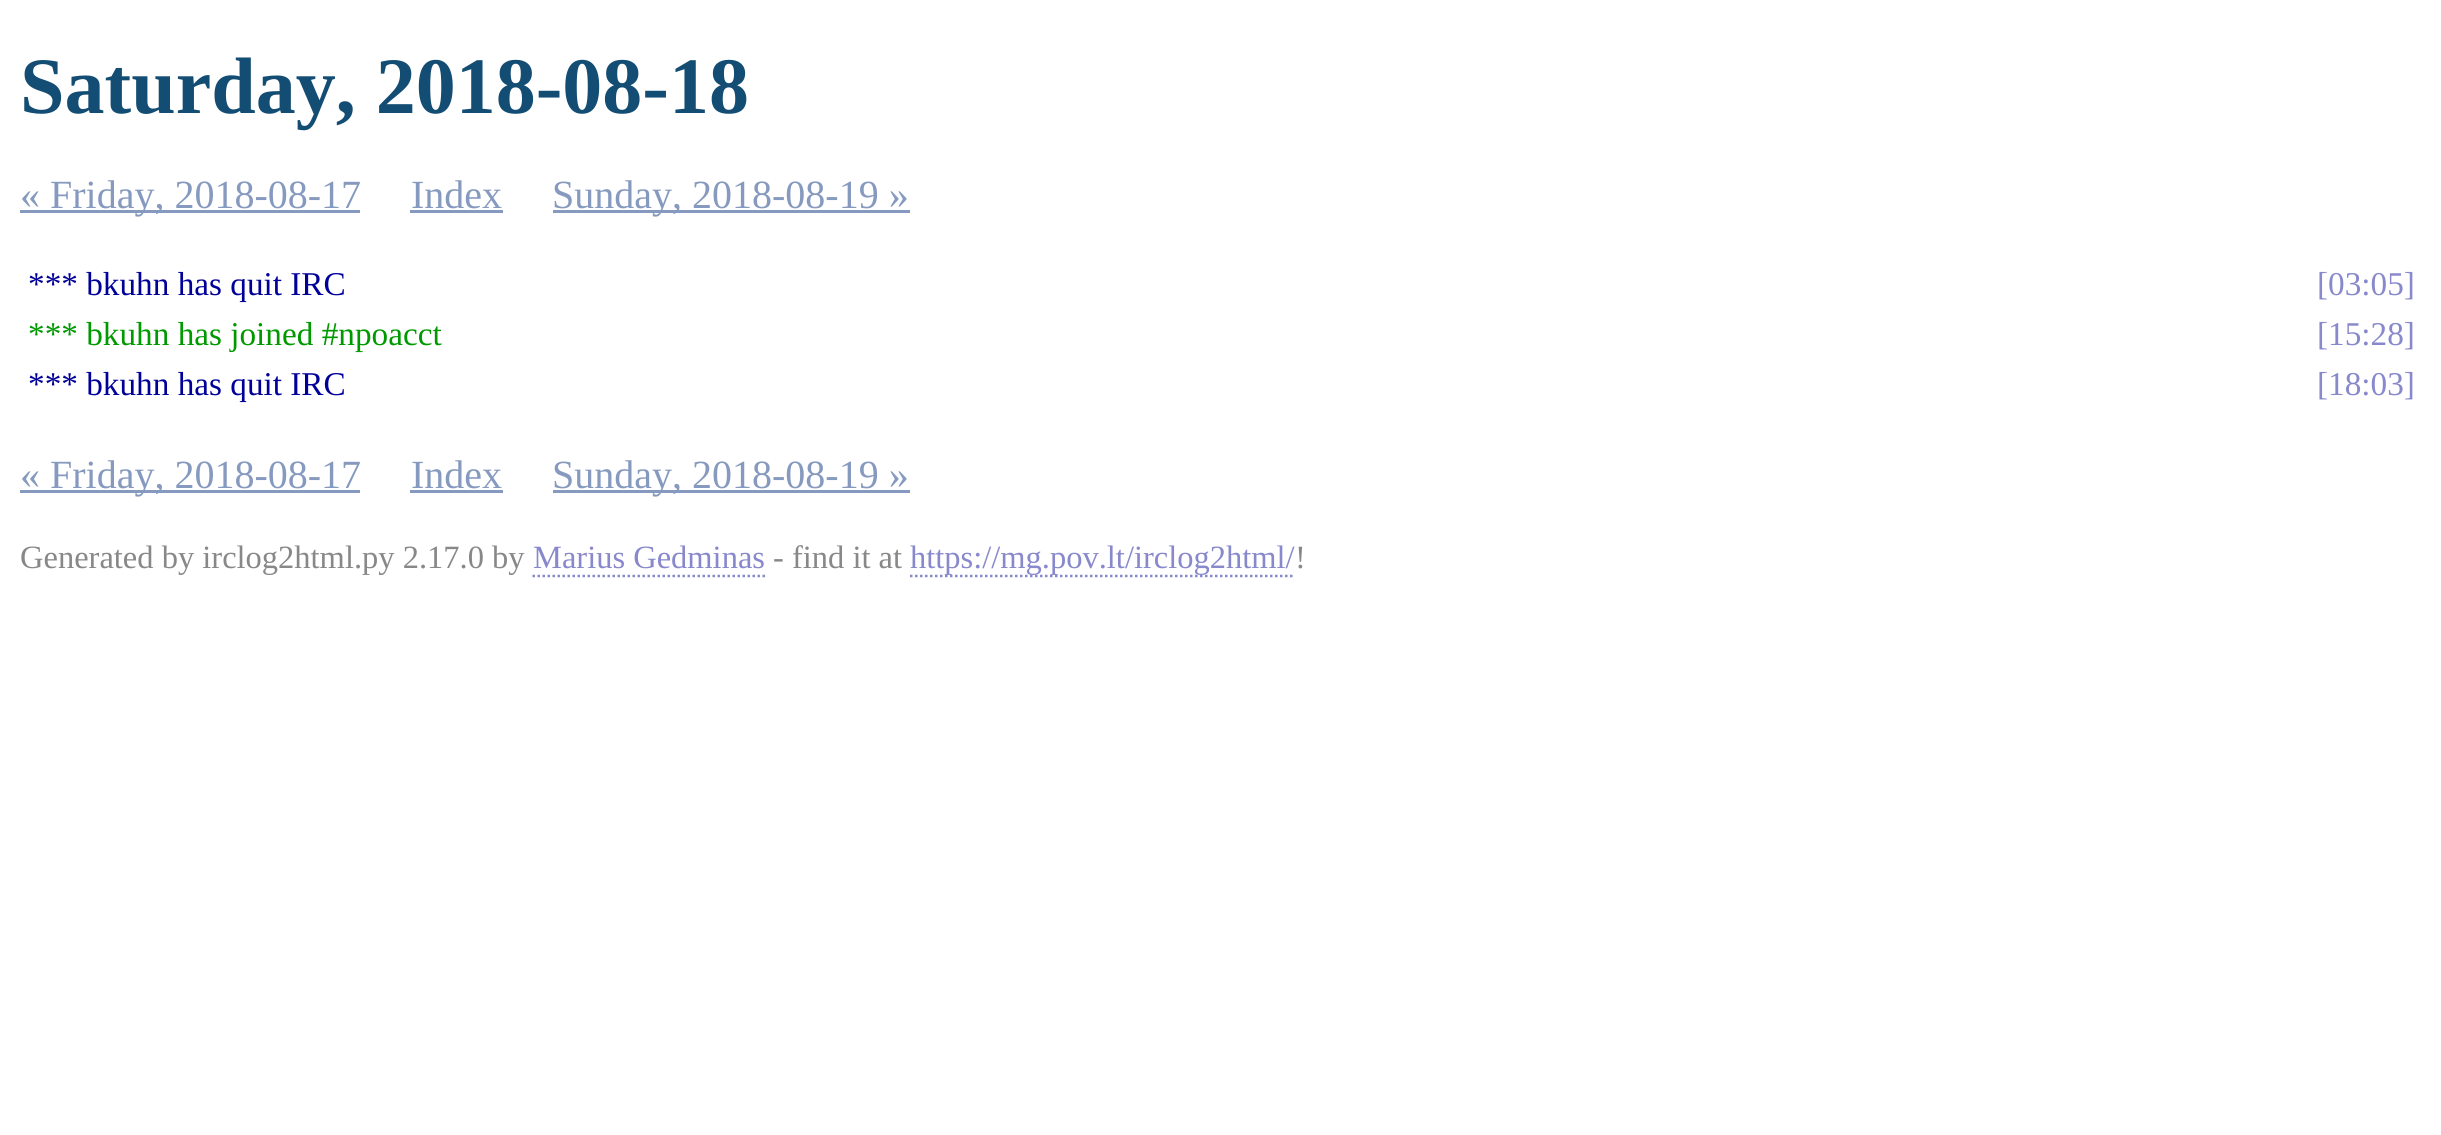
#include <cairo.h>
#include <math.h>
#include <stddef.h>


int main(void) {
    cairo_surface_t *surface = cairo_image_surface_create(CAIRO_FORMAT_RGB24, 2441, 1135);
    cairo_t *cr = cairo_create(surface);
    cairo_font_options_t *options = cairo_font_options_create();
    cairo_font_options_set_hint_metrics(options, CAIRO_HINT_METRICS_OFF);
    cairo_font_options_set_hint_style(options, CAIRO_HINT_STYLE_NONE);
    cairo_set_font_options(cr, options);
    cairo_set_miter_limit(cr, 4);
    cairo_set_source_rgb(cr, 1, 1, 1);
    cairo_paint(cr);
    cairo_select_font_face(cr, "Liberation Serif", CAIRO_FONT_SLANT_NORMAL, CAIRO_FONT_WEIGHT_BOLD);
    cairo_set_font_size(cr, 80);
    cairo_set_source_rgb(cr, 0.075, 0.302, 0.451);
    cairo_move_to(cr, 20, 113);
    cairo_show_text(cr, "Saturday, 2018-08-18");
    cairo_set_source_rgb(cr, 0.525, 0.604, 0.749);
    cairo_rectangle(cr, 20, 210, 340, 3);
    cairo_fill(cr);
    cairo_select_font_face(cr, "Liberation Serif", CAIRO_FONT_SLANT_NORMAL, CAIRO_FONT_WEIGHT_NORMAL);
    cairo_set_font_size(cr, 40);
    cairo_move_to(cr, 20, 208);
    cairo_show_text(cr, "« Friday, 2018-08-17");
    cairo_move_to(cr, 411, 208);
    cairo_show_text(cr, "Index");
    cairo_rectangle(cr, 410, 210, 93, 3);
    cairo_fill(cr);
    cairo_rectangle(cr, 553, 210, 357, 3);
    cairo_fill(cr);
    cairo_move_to(cr, 552, 208);
    cairo_show_text(cr, "Sunday, 2018-08-19 »");
    cairo_set_font_size(cr, 33.25);
    cairo_set_source_rgb(cr, 0, 0, 0.6);
    cairo_move_to(cr, 28, 295);
    cairo_show_text(cr, "*** bkuhn has quit IRC");
    cairo_set_source_rgb(cr, 0.533, 0.533, 0.8);
    cairo_move_to(cr, 2317, 295);
    cairo_show_text(cr, "[03:05]");
    cairo_set_source_rgb(cr, 0, 0.6, 0);
    cairo_move_to(cr, 28, 345);
    cairo_show_text(cr, "*** bkuhn has joined #npoacct");
    cairo_set_source_rgb(cr, 0.533, 0.533, 0.8);
    cairo_move_to(cr, 2317, 345);
    cairo_show_text(cr, "[15:28]");
    cairo_set_source_rgb(cr, 0, 0, 0.6);
    cairo_move_to(cr, 28, 395);
    cairo_show_text(cr, "*** bkuhn has quit IRC");
    cairo_set_source_rgb(cr, 0.533, 0.533, 0.8);
    cairo_move_to(cr, 2317, 395);
    cairo_show_text(cr, "[18:03]");
    cairo_set_source_rgb(cr, 0.525, 0.604, 0.749);
    cairo_rectangle(cr, 20, 490, 340, 3);
    cairo_fill(cr);
    cairo_set_font_size(cr, 40);
    cairo_move_to(cr, 20, 488);
    cairo_show_text(cr, "« Friday, 2018-08-17");
    cairo_move_to(cr, 411, 488);
    cairo_show_text(cr, "Index");
    cairo_rectangle(cr, 410, 490, 93, 3);
    cairo_fill(cr);
    cairo_rectangle(cr, 553, 490, 357, 3);
    cairo_fill(cr);
    cairo_move_to(cr, 552, 488);
    cairo_show_text(cr, "Sunday, 2018-08-19 »");
    cairo_set_font_size(cr, 32.5);
    cairo_set_source_rgb(cr, 0.533, 0.533, 0.533);
    cairo_move_to(cr, 20, 568);
    cairo_show_text(cr, "Generated by irclog2html.py 2.17.0 by");
    cairo_set_source_rgb(cr, 0.533, 0.533, 0.8);
    cairo_move_to(cr, 533, 568);
    cairo_show_text(cr, "Marius Gedminas");
    cairo_new_path(cr);
    cairo_move_to(cr, 532.5, 576);
    cairo_line_to(cr, 765, 576);
    cairo_set_line_width(cr, 2.5);
    cairo_set_dash(cr, (double[]){2.5, 2.5}, 2, 0);
    cairo_stroke(cr);
    cairo_set_source_rgb(cr, 0.533, 0.533, 0.533);
    cairo_move_to(cr, 773, 568);
    cairo_show_text(cr, "- find it at");
    cairo_new_path(cr);
    cairo_move_to(cr, 910, 576);
    cairo_line_to(cr, 1295, 576);
    cairo_set_source_rgb(cr, 0.533, 0.533, 0.8);
    cairo_stroke(cr);
    cairo_move_to(cr, 910, 568);
    cairo_show_text(cr, "https://mg.pov.lt/irclog2html/");
    cairo_set_source_rgb(cr, 0.533, 0.533, 0.533);
    cairo_move_to(cr, 1295, 568);
    cairo_show_text(cr, "!");
    cairo_surface_write_to_png(surface, "page.png");
    cairo_font_options_destroy(options);
    cairo_destroy(cr);
    cairo_surface_destroy(surface);
    return 0;
}
